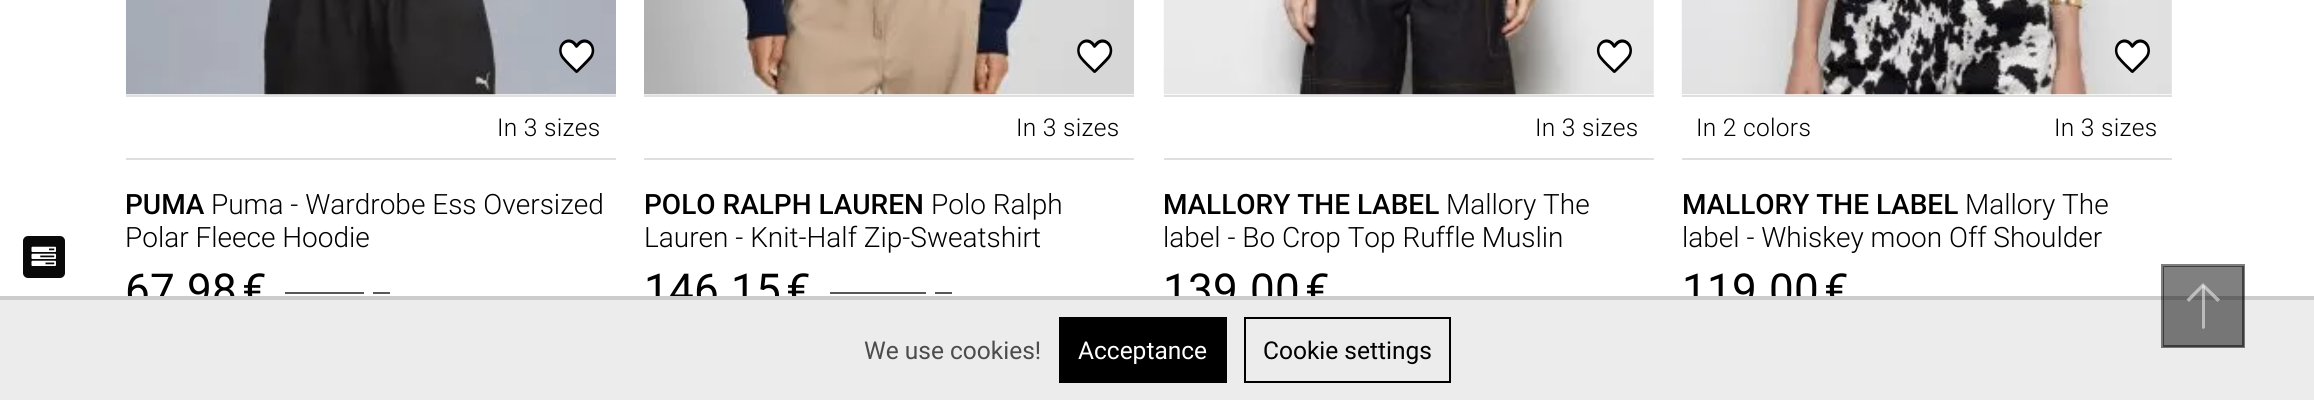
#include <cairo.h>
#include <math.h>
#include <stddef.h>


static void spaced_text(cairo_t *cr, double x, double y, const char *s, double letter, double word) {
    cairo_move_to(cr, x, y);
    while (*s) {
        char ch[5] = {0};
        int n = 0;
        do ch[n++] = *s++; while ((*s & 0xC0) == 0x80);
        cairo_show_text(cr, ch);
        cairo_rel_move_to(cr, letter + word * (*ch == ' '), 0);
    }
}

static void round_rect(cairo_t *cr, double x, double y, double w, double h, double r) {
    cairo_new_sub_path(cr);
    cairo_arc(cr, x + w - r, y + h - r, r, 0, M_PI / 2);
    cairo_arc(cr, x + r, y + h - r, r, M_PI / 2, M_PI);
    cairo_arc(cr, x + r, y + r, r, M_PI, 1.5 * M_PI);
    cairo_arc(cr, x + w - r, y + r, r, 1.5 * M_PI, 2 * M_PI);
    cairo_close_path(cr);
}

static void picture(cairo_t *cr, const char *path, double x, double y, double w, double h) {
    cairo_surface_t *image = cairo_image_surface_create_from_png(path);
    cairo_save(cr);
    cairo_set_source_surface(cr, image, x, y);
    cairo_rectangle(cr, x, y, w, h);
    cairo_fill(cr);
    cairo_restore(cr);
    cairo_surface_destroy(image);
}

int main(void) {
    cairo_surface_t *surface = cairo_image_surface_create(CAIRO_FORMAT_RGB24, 2314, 400);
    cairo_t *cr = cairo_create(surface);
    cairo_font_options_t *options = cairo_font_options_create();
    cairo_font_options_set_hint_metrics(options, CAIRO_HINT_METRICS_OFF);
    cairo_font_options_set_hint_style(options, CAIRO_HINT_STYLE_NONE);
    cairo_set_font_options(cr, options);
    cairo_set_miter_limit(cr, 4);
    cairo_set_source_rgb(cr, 1, 1, 1);
    cairo_paint(cr);
    cairo_set_source_rgb(cr, 0.502, 0.502, 0.502);
    cairo_rectangle(cr, 2163, 266, 81, 30);
    cairo_fill(cr);
    cairo_set_source_rgb(cr, 0.039, 0.039, 0.039);
    round_rect(cr, 23, 236, 42, 42, 5);
    cairo_fill(cr);
    picture(cr, "img1.png", 31, 246, 25, 20);
    picture(cr, "img2.png", 126, 0, 490, 95);
    picture(cr, "img3.png", 559, 39, 36, 34);
    cairo_set_source_rgb(cr, 0.878, 0.875, 0.875);
    cairo_rectangle(cr, 126, 95, 490, 2);
    cairo_fill(cr);
    cairo_rectangle(cr, 126, 158, 490, 2);
    cairo_fill(cr);
    cairo_select_font_face(cr, "Roboto Light", CAIRO_FONT_SLANT_NORMAL, CAIRO_FONT_WEIGHT_NORMAL);
    cairo_set_font_size(cr, 24.5);
    cairo_set_source_rgb(cr, 0, 0, 0);
    spaced_text(cr, 497, 136, "In 3 sizes", 0.3, 0);
    cairo_select_font_face(cr, "Roboto Medium", CAIRO_FONT_SLANT_NORMAL, CAIRO_FONT_WEIGHT_NORMAL);
    cairo_set_font_size(cr, 28);
    cairo_move_to(cr, 125, 214);
    cairo_show_text(cr, "PUMA");
    cairo_select_font_face(cr, "Roboto Light", CAIRO_FONT_SLANT_NORMAL, CAIRO_FONT_WEIGHT_NORMAL);
    cairo_move_to(cr, 211, 214);
    cairo_show_text(cr, "Puma - Wardrobe Ess Oversized");
    cairo_move_to(cr, 125, 247);
    cairo_show_text(cr, "Polar Fleece Hoodie");
    cairo_select_font_face(cr, "Roboto", CAIRO_FONT_SLANT_NORMAL, CAIRO_FONT_WEIGHT_NORMAL);
    cairo_set_font_size(cr, 44);
    spaced_text(cr, 125, 305, "67.98", 0.3, 0);
    spaced_text(cr, 242, 305, "€", 0.3, 0);
    cairo_set_source_rgb(cr, 0.341, 0.341, 0.341);
    cairo_rectangle(cr, 285, 292, 79, 2);
    cairo_fill(cr);
    cairo_rectangle(cr, 373, 292, 17, 2);
    cairo_fill(cr);
    picture(cr, "img4.png", 644, 0, 490, 95);
    picture(cr, "img5.png", 1077, 39, 36, 34);
    cairo_set_source_rgb(cr, 0.878, 0.875, 0.875);
    cairo_rectangle(cr, 644, 95, 490, 2);
    cairo_fill(cr);
    cairo_rectangle(cr, 644, 158, 490, 2);
    cairo_fill(cr);
    cairo_select_font_face(cr, "Roboto Light", CAIRO_FONT_SLANT_NORMAL, CAIRO_FONT_WEIGHT_NORMAL);
    cairo_set_font_size(cr, 24.5);
    cairo_set_source_rgb(cr, 0, 0, 0);
    spaced_text(cr, 1016, 136, "In 3 sizes", 0.3, 0);
    cairo_select_font_face(cr, "Roboto Medium", CAIRO_FONT_SLANT_NORMAL, CAIRO_FONT_WEIGHT_NORMAL);
    cairo_set_font_size(cr, 28);
    cairo_move_to(cr, 644, 214);
    cairo_show_text(cr, "POLO RALPH LAUREN");
    cairo_select_font_face(cr, "Roboto Light", CAIRO_FONT_SLANT_NORMAL, CAIRO_FONT_WEIGHT_NORMAL);
    cairo_move_to(cr, 931, 214);
    cairo_show_text(cr, "Polo Ralph");
    cairo_move_to(cr, 644, 247);
    cairo_show_text(cr, "Lauren - Knit-Half Zip-Sweatshirt");
    cairo_select_font_face(cr, "Roboto", CAIRO_FONT_SLANT_NORMAL, CAIRO_FONT_WEIGHT_NORMAL);
    cairo_set_font_size(cr, 44);
    spaced_text(cr, 644, 305, "146.15", 0.3, 0);
    spaced_text(cr, 786, 305, "€", 0.3, 0);
    cairo_set_source_rgb(cr, 0.341, 0.341, 0.341);
    cairo_rectangle(cr, 830, 292, 96, 2);
    cairo_fill(cr);
    cairo_rectangle(cr, 935, 292, 17, 2);
    cairo_fill(cr);
    picture(cr, "img6.png", 1163, 0, 491, 95);
    picture(cr, "img7.png", 1596, 39, 36, 34);
    cairo_set_source_rgb(cr, 0.878, 0.875, 0.875);
    cairo_rectangle(cr, 1164, 95, 490, 2);
    cairo_fill(cr);
    cairo_rectangle(cr, 1164, 158, 490, 2);
    cairo_fill(cr);
    cairo_select_font_face(cr, "Roboto Light", CAIRO_FONT_SLANT_NORMAL, CAIRO_FONT_WEIGHT_NORMAL);
    cairo_set_font_size(cr, 24.5);
    cairo_set_source_rgb(cr, 0, 0, 0);
    spaced_text(cr, 1535, 136, "In 3 sizes", 0.3, 0);
    cairo_select_font_face(cr, "Roboto Medium", CAIRO_FONT_SLANT_NORMAL, CAIRO_FONT_WEIGHT_NORMAL);
    cairo_set_font_size(cr, 28);
    cairo_move_to(cr, 1163, 214);
    cairo_show_text(cr, "MALLORY THE LABEL");
    cairo_select_font_face(cr, "Roboto Light", CAIRO_FONT_SLANT_NORMAL, CAIRO_FONT_WEIGHT_NORMAL);
    cairo_move_to(cr, 1446, 214);
    cairo_show_text(cr, "Mallory The");
    cairo_move_to(cr, 1163, 247);
    cairo_show_text(cr, "label - Bo Crop Top Ruffle Muslin");
    cairo_select_font_face(cr, "Roboto", CAIRO_FONT_SLANT_NORMAL, CAIRO_FONT_WEIGHT_NORMAL);
    cairo_set_font_size(cr, 44);
    spaced_text(cr, 1163, 305, "139.00", 0.3, 0);
    spaced_text(cr, 1305, 305, "€", 0.3, 0);
    picture(cr, "img8.png", 1681, 0, 491, 95);
    picture(cr, "img9.png", 2114, 39, 36, 34);
    cairo_set_source_rgb(cr, 0.878, 0.875, 0.875);
    cairo_rectangle(cr, 1682, 95, 490, 2);
    cairo_fill(cr);
    cairo_rectangle(cr, 1682, 158, 490, 2);
    cairo_fill(cr);
    cairo_select_font_face(cr, "Roboto Light", CAIRO_FONT_SLANT_NORMAL, CAIRO_FONT_WEIGHT_NORMAL);
    cairo_set_font_size(cr, 24.5);
    cairo_set_source_rgb(cr, 0, 0, 0);
    spaced_text(cr, 1696, 136, "In 2 colors", 0.3, 0);
    spaced_text(cr, 2054, 136, "In 3 sizes", 0.3, 0);
    cairo_select_font_face(cr, "Roboto Medium", CAIRO_FONT_SLANT_NORMAL, CAIRO_FONT_WEIGHT_NORMAL);
    cairo_set_font_size(cr, 28);
    cairo_move_to(cr, 1682, 214);
    cairo_show_text(cr, "MALLORY THE LABEL");
    cairo_select_font_face(cr, "Roboto Light", CAIRO_FONT_SLANT_NORMAL, CAIRO_FONT_WEIGHT_NORMAL);
    cairo_move_to(cr, 1965, 214);
    cairo_show_text(cr, "Mallory The");
    cairo_move_to(cr, 1682, 247);
    cairo_show_text(cr, "label - Whiskey moon Off Shoulder");
    cairo_select_font_face(cr, "Roboto", CAIRO_FONT_SLANT_NORMAL, CAIRO_FONT_WEIGHT_NORMAL);
    cairo_set_font_size(cr, 44);
    spaced_text(cr, 1682, 305, "119.00", 0.3, 0);
    spaced_text(cr, 1824, 305, "€", 0.3, 0);
    cairo_set_source_rgb(cr, 0.922, 0.922, 0.925);
    cairo_rectangle(cr, 0, 300, 2314, 100);
    cairo_fill(cr);
    cairo_set_source_rgb(cr, 0.463, 0.463, 0.463);
    cairo_rectangle(cr, 2163, 300, 81, 47);
    cairo_fill(cr);
    cairo_set_source_rgb(cr, 0.8, 0.8, 0.8);
    cairo_rectangle(cr, 0, 296, 2314, 4);
    cairo_fill(cr);
    cairo_set_source_rgb(cr, 0.4, 0.4, 0.4);
    cairo_rectangle(cr, 2163, 296, 81, 4);
    cairo_fill(cr);
    cairo_set_source_rgba(cr, 0, 0, 0, 0.5);
    cairo_new_path(cr);
    cairo_move_to(cr, 2245, 348);
    cairo_line_to(cr, 2161, 348);
    cairo_line_to(cr, 2161, 264);
    cairo_line_to(cr, 2245, 264);
    cairo_close_path(cr);
    cairo_move_to(cr, 2164, 345);
    cairo_line_to(cr, 2242, 345);
    cairo_line_to(cr, 2242, 267);
    cairo_line_to(cr, 2164, 267);
    cairo_close_path(cr);
    cairo_fill(cr);
    cairo_set_source_rgba(cr, 1, 1, 1, 0.5);
    cairo_new_path(cr);
    cairo_move_to(cr, 2203, 329);
    cairo_line_to(cr, 2202, 328);
    cairo_line_to(cr, 2202, 286);
    cairo_line_to(cr, 2203, 285);
    cairo_line_to(cr, 2205, 286);
    cairo_line_to(cr, 2205, 328);
    cairo_close_path(cr);
    cairo_fill(cr);
    cairo_new_path(cr);
    cairo_move_to(cr, 2217.5, 302);
    cairo_line_to(cr, 2203, 287.5);
    cairo_line_to(cr, 2189, 302);
    cairo_line_to(cr, 2186.5, 299.5);
    cairo_line_to(cr, 2203, 283);
    cairo_line_to(cr, 2220, 299.5);
    cairo_close_path(cr);
    cairo_fill(cr);
    cairo_set_font_size(cr, 24.5);
    cairo_set_source_rgb(cr, 0.298, 0.298, 0.298);
    cairo_move_to(cr, 864, 359);
    cairo_show_text(cr, "We use cookies!");
    cairo_set_source_rgb(cr, 0, 0, 0);
    cairo_rectangle(cr, 1059, 317, 168, 66);
    cairo_fill(cr);
    cairo_set_source_rgb(cr, 1, 1, 1);
    cairo_move_to(cr, 1078, 359);
    cairo_show_text(cr, "Acceptance");
    cairo_rectangle(cr, 1245, 318, 205, 64);
    cairo_set_source_rgb(cr, 0, 0, 0);
    cairo_stroke(cr);
    cairo_move_to(cr, 1263, 359);
    cairo_show_text(cr, "Cookie settings");
    cairo_surface_write_to_png(surface, "page.png");
    cairo_font_options_destroy(options);
    cairo_destroy(cr);
    cairo_surface_destroy(surface);
    return 0;
}
